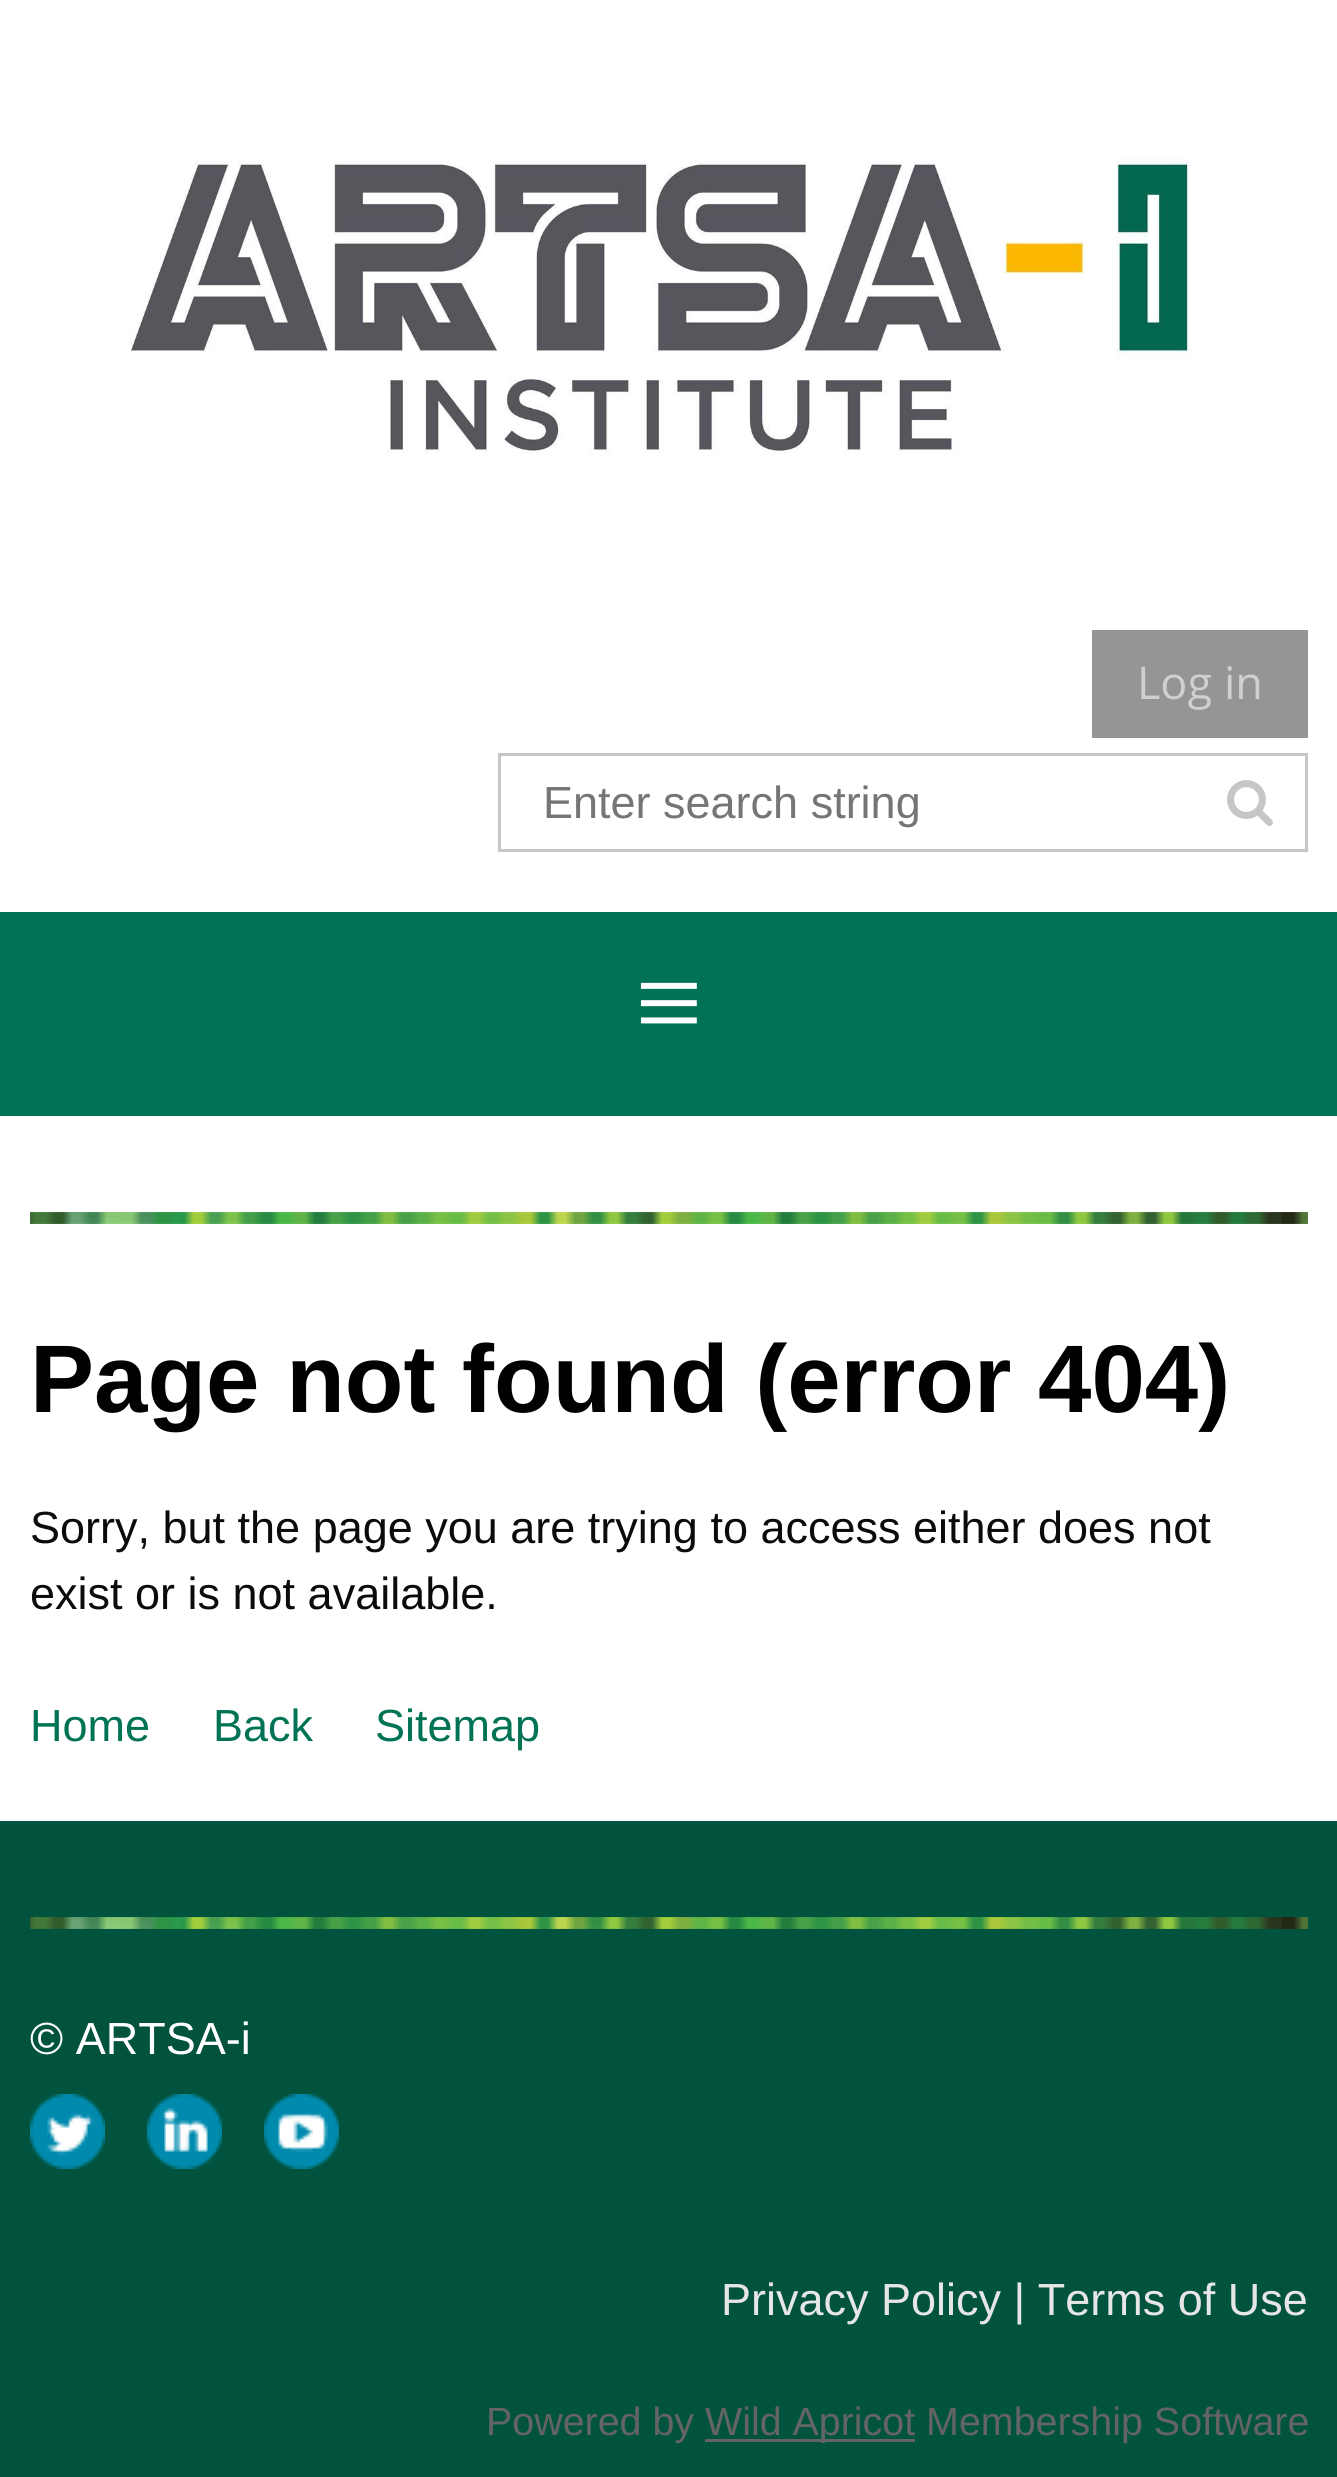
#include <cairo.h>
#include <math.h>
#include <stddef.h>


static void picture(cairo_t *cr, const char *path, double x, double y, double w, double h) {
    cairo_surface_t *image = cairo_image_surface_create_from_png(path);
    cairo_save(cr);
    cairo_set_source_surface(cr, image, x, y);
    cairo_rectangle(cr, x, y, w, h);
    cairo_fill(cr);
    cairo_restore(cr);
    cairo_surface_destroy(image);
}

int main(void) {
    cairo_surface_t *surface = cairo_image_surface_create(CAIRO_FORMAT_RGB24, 1337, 2477);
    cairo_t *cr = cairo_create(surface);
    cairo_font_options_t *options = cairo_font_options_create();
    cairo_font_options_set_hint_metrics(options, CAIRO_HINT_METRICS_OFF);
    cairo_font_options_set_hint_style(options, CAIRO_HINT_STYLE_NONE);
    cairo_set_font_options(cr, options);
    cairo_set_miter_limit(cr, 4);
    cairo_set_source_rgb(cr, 1, 1, 1);
    cairo_paint(cr);
    picture(cr, "img1.png", 131, 156, 1060, 298);
    cairo_set_source_rgb(cr, 0.584, 0.584, 0.584);
    cairo_rectangle(cr, 1092, 630, 216, 108);
    cairo_fill(cr);
    cairo_select_font_face(cr, "Open Sans", CAIRO_FONT_SLANT_NORMAL, CAIRO_FONT_WEIGHT_NORMAL);
    cairo_set_font_size(cr, 45);
    cairo_set_source_rgb(cr, 0.816, 0.816, 0.816);
    cairo_move_to(cr, 1137, 699);
    cairo_show_text(cr, "Log in");
    cairo_rectangle(cr, 499.5, 754.5, 807, 96);
    cairo_set_source_rgb(cr, 0.776, 0.776, 0.776);
    cairo_set_line_width(cr, 3);
    cairo_stroke(cr);
    cairo_select_font_face(cr, "Liberation Sans", CAIRO_FONT_SLANT_NORMAL, CAIRO_FONT_WEIGHT_NORMAL);
    cairo_set_source_rgb(cr, 0.459, 0.459, 0.459);
    cairo_move_to(cr, 543, 818);
    cairo_show_text(cr, "Enter search string");
    picture(cr, "img2.png", 1227, 780, 46, 46);
    cairo_set_source_rgb(cr, 0, 0.451, 0.333);
    cairo_rectangle(cr, 0, 912, 1337, 204);
    cairo_fill(cr);
    cairo_select_font_face(cr, "Liberation Serif", CAIRO_FONT_SLANT_NORMAL, CAIRO_FONT_WEIGHT_NORMAL);
    cairo_set_font_size(cr, 120);
    cairo_set_source_rgb(cr, 1, 1, 1);
    cairo_move_to(cr, 635, 1043);
    cairo_show_text(cr, "≡");
    picture(cr, "img3.png", 30, 1212, 1278, 12);
    cairo_select_font_face(cr, "Liberation Sans", CAIRO_FONT_SLANT_NORMAL, CAIRO_FONT_WEIGHT_BOLD);
    cairo_set_font_size(cr, 96);
    cairo_set_source_rgb(cr, 0.004, 0.004, 0.004);
    cairo_move_to(cr, 30, 1412);
    cairo_show_text(cr, "Page not found (error 404)");
    cairo_select_font_face(cr, "Liberation Sans", CAIRO_FONT_SLANT_NORMAL, CAIRO_FONT_WEIGHT_NORMAL);
    cairo_set_font_size(cr, 45);
    cairo_set_source_rgb(cr, 0.043, 0.043, 0.043);
    cairo_move_to(cr, 30, 1543);
    cairo_show_text(cr, "Sorry, but the page you are trying to access either does not");
    cairo_move_to(cr, 30, 1609);
    cairo_show_text(cr, "exist or is not available.");
    cairo_set_source_rgb(cr, 0, 0.451, 0.333);
    cairo_move_to(cr, 30, 1741);
    cairo_show_text(cr, "Home");
    cairo_move_to(cr, 213, 1741);
    cairo_show_text(cr, "Back");
    cairo_move_to(cr, 375, 1741);
    cairo_show_text(cr, "Sitemap");
    cairo_set_source_rgb(cr, 0.004, 0.325, 0.239);
    cairo_rectangle(cr, 0, 1821, 1337, 656);
    cairo_fill(cr);
    picture(cr, "img4.png", 30, 1917, 1278, 12);
    cairo_set_source_rgb(cr, 1, 1, 1);
    cairo_move_to(cr, 30, 2054);
    cairo_show_text(cr, "© ARTSA-i");
    picture(cr, "img5.png", 30, 2094, 75, 75);
    picture(cr, "img6.png", 147, 2094, 75, 75);
    picture(cr, "img7.png", 264, 2094, 75, 75);
    cairo_set_source_rgb(cr, 0.902, 0.902, 0.902);
    cairo_move_to(cr, 721, 2315);
    cairo_show_text(cr, "Privacy Policy | Terms of Use");
    cairo_set_font_size(cr, 39.4);
    cairo_set_source_rgb(cr, 0.392, 0.392, 0.392);
    cairo_move_to(cr, 486, 2435);
    cairo_show_text(cr, "Powered by");
    cairo_rectangle(cr, 705, 2439, 210, 3);
    cairo_fill(cr);
    cairo_move_to(cr, 705, 2435);
    cairo_show_text(cr, "Wild Apricot Membership Software");
    cairo_surface_write_to_png(surface, "page.png");
    cairo_font_options_destroy(options);
    cairo_destroy(cr);
    cairo_surface_destroy(surface);
    return 0;
}
